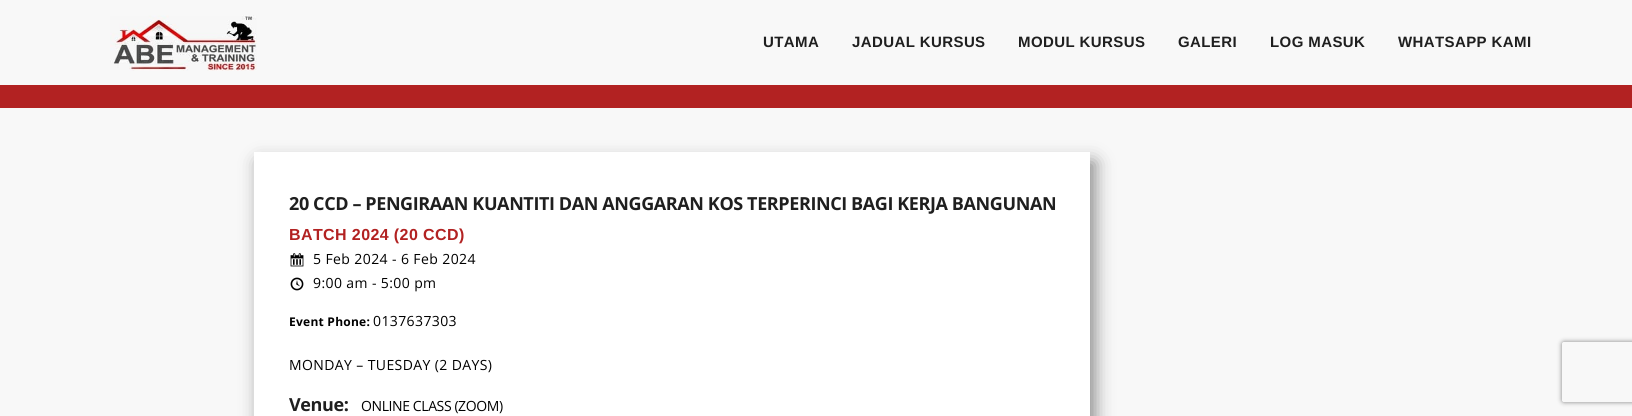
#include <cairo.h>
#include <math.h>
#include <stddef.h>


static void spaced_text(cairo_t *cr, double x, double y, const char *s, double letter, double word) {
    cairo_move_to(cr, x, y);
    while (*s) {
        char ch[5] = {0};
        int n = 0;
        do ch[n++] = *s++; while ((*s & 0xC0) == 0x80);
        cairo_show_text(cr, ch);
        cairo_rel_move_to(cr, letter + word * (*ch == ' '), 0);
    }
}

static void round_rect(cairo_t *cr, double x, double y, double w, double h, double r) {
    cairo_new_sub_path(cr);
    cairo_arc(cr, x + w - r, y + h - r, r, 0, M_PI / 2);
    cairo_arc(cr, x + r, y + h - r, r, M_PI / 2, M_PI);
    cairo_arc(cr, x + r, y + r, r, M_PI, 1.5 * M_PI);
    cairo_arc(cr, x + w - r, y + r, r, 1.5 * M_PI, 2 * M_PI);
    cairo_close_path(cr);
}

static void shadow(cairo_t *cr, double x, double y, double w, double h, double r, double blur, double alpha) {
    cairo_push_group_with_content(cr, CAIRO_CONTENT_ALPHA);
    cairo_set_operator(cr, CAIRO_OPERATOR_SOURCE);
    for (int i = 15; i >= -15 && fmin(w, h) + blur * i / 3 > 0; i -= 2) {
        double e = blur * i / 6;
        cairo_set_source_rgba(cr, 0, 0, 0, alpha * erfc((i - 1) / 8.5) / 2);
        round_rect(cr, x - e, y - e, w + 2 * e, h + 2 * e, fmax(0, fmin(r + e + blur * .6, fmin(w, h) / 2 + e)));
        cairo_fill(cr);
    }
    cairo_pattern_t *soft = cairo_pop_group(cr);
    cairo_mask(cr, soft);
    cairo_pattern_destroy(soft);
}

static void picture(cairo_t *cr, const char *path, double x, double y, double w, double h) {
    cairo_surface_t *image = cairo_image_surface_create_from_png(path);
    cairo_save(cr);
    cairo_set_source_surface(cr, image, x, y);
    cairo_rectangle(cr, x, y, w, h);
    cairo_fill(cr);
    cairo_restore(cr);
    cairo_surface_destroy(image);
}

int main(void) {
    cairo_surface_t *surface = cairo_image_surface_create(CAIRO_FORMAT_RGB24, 1632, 416);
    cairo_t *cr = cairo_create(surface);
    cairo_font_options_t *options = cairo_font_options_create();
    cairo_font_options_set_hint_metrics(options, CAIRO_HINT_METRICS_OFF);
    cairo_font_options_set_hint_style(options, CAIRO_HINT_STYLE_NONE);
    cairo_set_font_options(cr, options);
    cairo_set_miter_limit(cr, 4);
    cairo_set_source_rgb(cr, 0.969, 0.969, 0.969);
    cairo_paint(cr);
    cairo_set_source_rgb(cr, 0.698, 0.133, 0.133);
    cairo_rectangle(cr, 0, 85, 1632, 23);
    cairo_fill(cr);
    picture(cr, "img1.png", 110, 15, 147, 56);
    cairo_select_font_face(cr, "Liberation Sans", CAIRO_FONT_SLANT_NORMAL, CAIRO_FONT_WEIGHT_BOLD);
    cairo_set_font_size(cr, 15);
    cairo_set_source_rgb(cr, 0.122, 0.122, 0.122);
    spaced_text(cr, 763, 47, "UTAMA", 0.4, 0);
    spaced_text(cr, 852, 47, "JADUAL KURSUS", 0.4, 0);
    spaced_text(cr, 1018, 47, "MODUL KURSUS", 0.4, 0);
    spaced_text(cr, 1178, 47, "GALERI", 0.4, 0);
    spaced_text(cr, 1270, 47, "LOG MASUK", 0.4, 0);
    spaced_text(cr, 1398, 47, "WHATSAPP KAMI", 0.4, 0);
    cairo_set_source_rgb(cr, 0.533, 0.533, 0.533);
    shadow(cr, 259, 162, 836, 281, 0, 9, 1);
    cairo_set_source_rgb(cr, 1, 1, 1);
    cairo_rectangle(cr, 254, 152, 836, 264);
    cairo_fill(cr);
    cairo_select_font_face(cr, "Open Sans", CAIRO_FONT_SLANT_NORMAL, CAIRO_FONT_WEIGHT_BOLD);
    cairo_set_font_size(cr, 18);
    cairo_set_source_rgb(cr, 0.122, 0.122, 0.122);
    spaced_text(cr, 289, 210, "20 CCD – PENGIRAAN KUANTITI DAN ANGGARAN KOS TERPERINCI BAGI KERJA BANGUNAN", -0.4, 0);
    cairo_select_font_face(cr, "Liberation Sans", CAIRO_FONT_SLANT_NORMAL, CAIRO_FONT_WEIGHT_BOLD);
    cairo_set_font_size(cr, 16);
    cairo_set_source_rgb(cr, 0.698, 0.133, 0.133);
    spaced_text(cr, 289, 240, "BATCH 2024 (20 CCD)", 0.4, 0);
    picture(cr, "img2.png", 290, 253, 14, 14);
    cairo_select_font_face(cr, "Open Sans", CAIRO_FONT_SLANT_NORMAL, CAIRO_FONT_WEIGHT_NORMAL);
    cairo_set_font_size(cr, 14);
    cairo_set_source_rgb(cr, 0, 0, 0);
    spaced_text(cr, 313, 264, "5 Feb 2024 - 6 Feb 2024", 0.4, 0);
    picture(cr, "img3.png", 290, 277, 14, 14);
    spaced_text(cr, 313, 288, "9:00 am - 5:00 pm", 0.4, 0);
    cairo_select_font_face(cr, "Open Sans", CAIRO_FONT_SLANT_NORMAL, CAIRO_FONT_WEIGHT_BOLD);
    cairo_set_font_size(cr, 12);
    spaced_text(cr, 289, 326, "Event Phone:", 0.25, 0);
    cairo_select_font_face(cr, "Open Sans", CAIRO_FONT_SLANT_NORMAL, CAIRO_FONT_WEIGHT_NORMAL);
    cairo_set_font_size(cr, 14);
    spaced_text(cr, 373, 326, "0137637303", 0.4, 0);
    spaced_text(cr, 289, 370, "MONDAY – TUESDAY (2 DAYS)", 0.4, 0);
    cairo_select_font_face(cr, "Open Sans", CAIRO_FONT_SLANT_NORMAL, CAIRO_FONT_WEIGHT_BOLD);
    cairo_set_font_size(cr, 18);
    cairo_set_source_rgb(cr, 0.122, 0.122, 0.122);
    spaced_text(cr, 289, 411, "Venue:", -0.4, 0);
    cairo_select_font_face(cr, "Open Sans", CAIRO_FONT_SLANT_NORMAL, CAIRO_FONT_WEIGHT_NORMAL);
    cairo_set_font_size(cr, 14);
    cairo_set_source_rgb(cr, 0, 0, 0);
    spaced_text(cr, 361, 411, "ONLINE CLASS (ZOOM)", -0.4, 0);
    cairo_save(cr);
    cairo_set_fill_rule(cr, CAIRO_FILL_RULE_EVEN_ODD);
    cairo_new_path(cr);
    cairo_move_to(cr, 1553, 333);
    cairo_line_to(cr, 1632, 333);
    cairo_line_to(cr, 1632, 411);
    cairo_line_to(cr, 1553, 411);
    cairo_close_path(cr);
    cairo_move_to(cr, 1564, 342);
    cairo_line_to(cr, 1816, 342);
    cairo_curve_to(cr, 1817, 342, 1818, 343, 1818, 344);
    cairo_line_to(cr, 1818, 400);
    cairo_curve_to(cr, 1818, 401, 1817, 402, 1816, 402);
    cairo_line_to(cr, 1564, 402);
    cairo_curve_to(cr, 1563, 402, 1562, 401, 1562, 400);
    cairo_line_to(cr, 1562, 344);
    cairo_curve_to(cr, 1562, 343, 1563, 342, 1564, 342);
    cairo_close_path(cr);
    cairo_clip(cr);
    cairo_set_source_rgb(cr, 0.502, 0.502, 0.502);
    shadow(cr, 1562, 342, 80, 60, 2, 2.5, 1);
    cairo_restore(cr);
    cairo_surface_write_to_png(surface, "page.png");
    cairo_font_options_destroy(options);
    cairo_destroy(cr);
    cairo_surface_destroy(surface);
    return 0;
}
